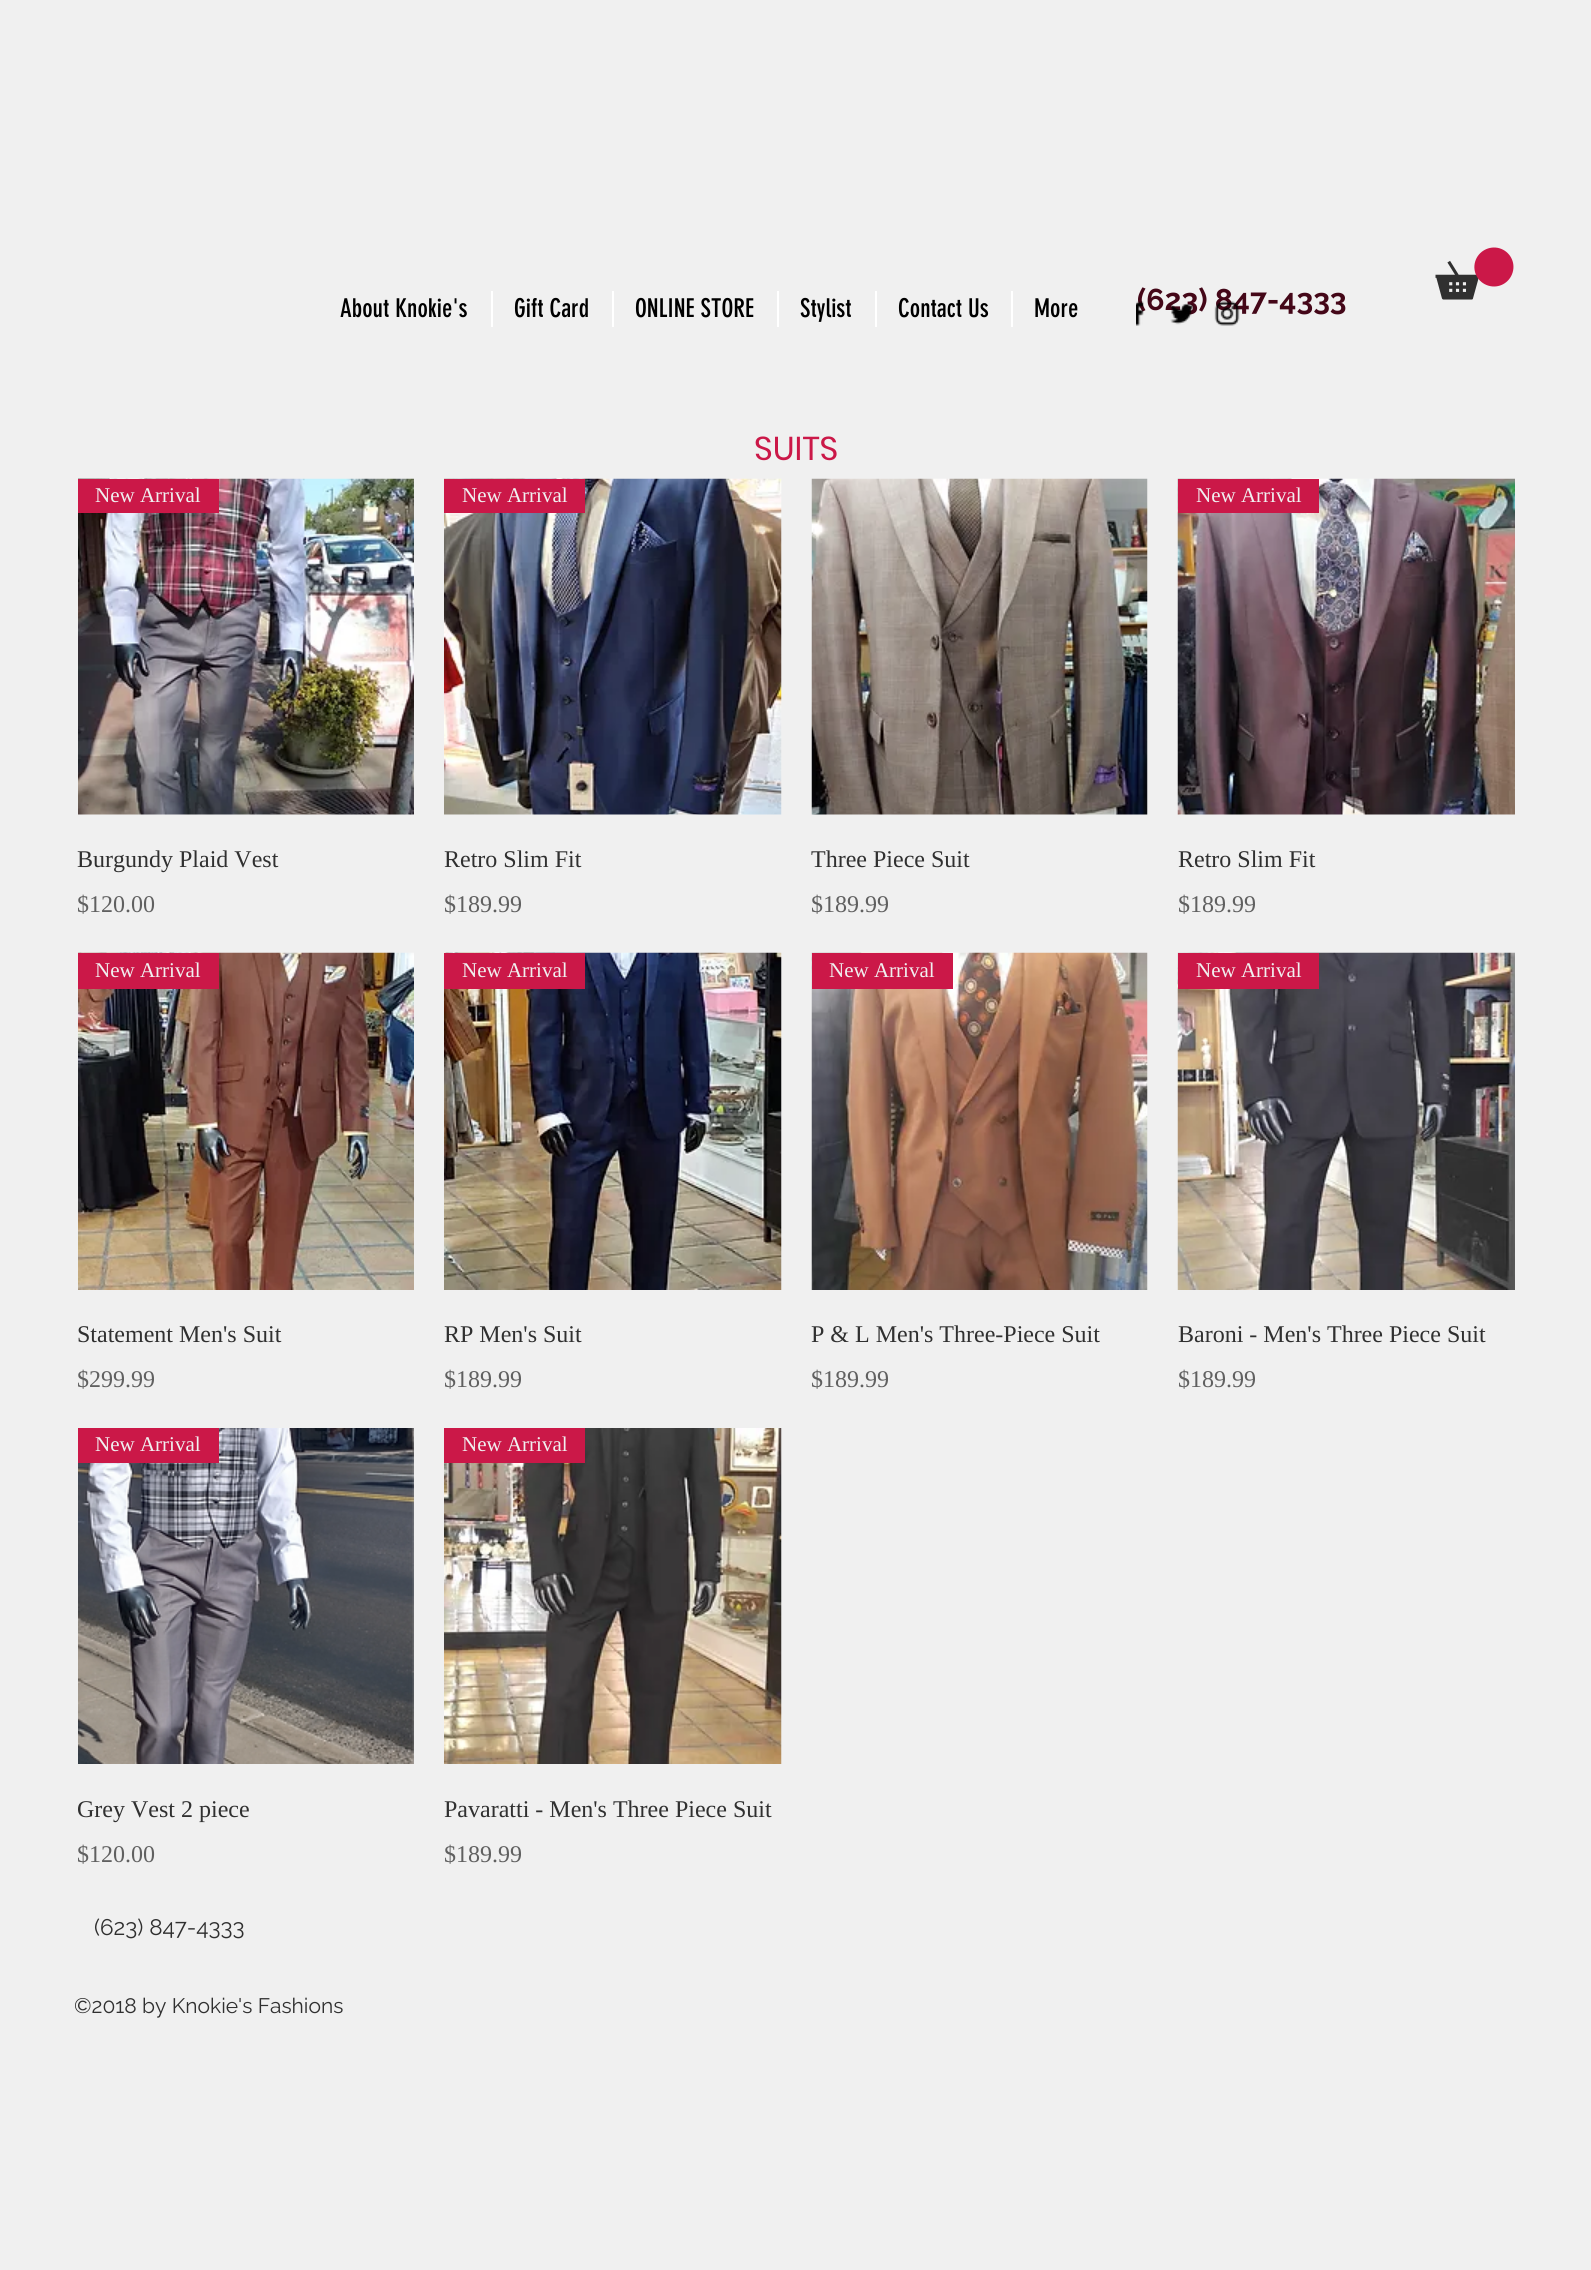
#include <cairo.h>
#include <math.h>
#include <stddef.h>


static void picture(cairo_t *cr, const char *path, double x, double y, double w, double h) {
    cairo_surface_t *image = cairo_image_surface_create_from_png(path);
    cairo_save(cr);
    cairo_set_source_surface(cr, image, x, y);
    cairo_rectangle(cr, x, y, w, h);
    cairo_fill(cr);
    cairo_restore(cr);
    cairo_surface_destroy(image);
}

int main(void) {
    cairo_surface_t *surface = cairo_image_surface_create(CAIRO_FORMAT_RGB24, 1591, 2270);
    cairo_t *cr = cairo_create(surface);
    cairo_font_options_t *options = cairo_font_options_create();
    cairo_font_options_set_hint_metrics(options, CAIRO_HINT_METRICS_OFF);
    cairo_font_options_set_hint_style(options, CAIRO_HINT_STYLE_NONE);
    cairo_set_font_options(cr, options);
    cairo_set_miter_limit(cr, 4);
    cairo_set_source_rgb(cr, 0.941, 0.941, 0.941);
    cairo_paint(cr);
    cairo_select_font_face(cr, "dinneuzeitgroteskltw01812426", CAIRO_FONT_SLANT_NORMAL, CAIRO_FONT_WEIGHT_NORMAL);
    cairo_set_font_size(cr, 25.5);
    cairo_set_source_rgb(cr, 0, 0, 0);
    cairo_move_to(cr, 340, 317);
    cairo_show_text(cr, "About Knokie's");
    cairo_set_source_rgb(cr, 1, 1, 1);
    cairo_rectangle(cr, 491, 291, 2, 36);
    cairo_fill(cr);
    cairo_set_source_rgb(cr, 0, 0, 0);
    cairo_move_to(cr, 514, 317);
    cairo_show_text(cr, "Gift Card");
    cairo_set_source_rgb(cr, 1, 1, 1);
    cairo_rectangle(cr, 612, 291, 2, 36);
    cairo_fill(cr);
    cairo_set_source_rgb(cr, 0, 0, 0);
    cairo_move_to(cr, 635, 317);
    cairo_show_text(cr, "ONLINE STORE");
    cairo_set_source_rgb(cr, 1, 1, 1);
    cairo_rectangle(cr, 777, 291, 2, 36);
    cairo_fill(cr);
    cairo_set_source_rgb(cr, 0, 0, 0);
    cairo_move_to(cr, 800, 317);
    cairo_show_text(cr, "Stylist");
    cairo_set_source_rgb(cr, 1, 1, 1);
    cairo_rectangle(cr, 875, 291, 2, 36);
    cairo_fill(cr);
    cairo_set_source_rgb(cr, 0, 0, 0);
    cairo_move_to(cr, 898, 317);
    cairo_show_text(cr, "Contact Us");
    cairo_set_source_rgb(cr, 1, 1, 1);
    cairo_rectangle(cr, 1011, 291, 2, 36);
    cairo_fill(cr);
    cairo_set_source_rgb(cr, 0, 0, 0);
    cairo_move_to(cr, 1034, 317);
    cairo_show_text(cr, "More");
    cairo_select_font_face(cr, "Raleway", CAIRO_FONT_SLANT_NORMAL, CAIRO_FONT_WEIGHT_BOLD);
    cairo_set_font_size(cr, 30);
    cairo_set_source_rgb(cr, 0.267, 0.031, 0.094);
    cairo_move_to(cr, 1137, 310);
    cairo_show_text(cr, "(623) 847-4333");
    picture(cr, "img1.png", 1435, 247, 79, 53);
    picture(cr, "img2.png", 1136, 301, 8, 25);
    picture(cr, "img3.png", 1170, 303, 24, 22);
    picture(cr, "img4.png", 1214, 301, 26, 25);
    cairo_select_font_face(cr, "Poppins", CAIRO_FONT_SLANT_NORMAL, CAIRO_FONT_WEIGHT_NORMAL);
    cairo_set_font_size(cr, 33);
    cairo_set_source_rgb(cr, 0.796, 0.094, 0.282);
    cairo_move_to(cr, 754, 460);
    cairo_show_text(cr, "SUITS");
    picture(cr, "img5.png", 78, 478, 336, 337);
    cairo_rectangle(cr, 78, 479, 141, 34);
    cairo_fill(cr);
    cairo_select_font_face(cr, "Liberation Serif", CAIRO_FONT_SLANT_NORMAL, CAIRO_FONT_WEIGHT_NORMAL);
    cairo_set_font_size(cr, 21);
    cairo_set_source_rgb(cr, 0.941, 0.941, 0.941);
    cairo_move_to(cr, 95, 502);
    cairo_show_text(cr, "New Arrival");
    cairo_set_font_size(cr, 24);
    cairo_set_source_rgb(cr, 0.188, 0.188, 0.188);
    cairo_move_to(cr, 77, 867);
    cairo_show_text(cr, "Burgundy Plaid Vest");
    cairo_set_source_rgb(cr, 0.376, 0.376, 0.376);
    cairo_move_to(cr, 77, 912);
    cairo_show_text(cr, "$120.00");
    picture(cr, "img6.png", 444, 478, 338, 337);
    cairo_set_source_rgb(cr, 0.796, 0.094, 0.282);
    cairo_rectangle(cr, 444, 479, 141, 34);
    cairo_fill(cr);
    cairo_set_font_size(cr, 21);
    cairo_set_source_rgb(cr, 0.941, 0.941, 0.941);
    cairo_move_to(cr, 462, 502);
    cairo_show_text(cr, "New Arrival");
    cairo_set_font_size(cr, 24);
    cairo_set_source_rgb(cr, 0.188, 0.188, 0.188);
    cairo_move_to(cr, 444, 867);
    cairo_show_text(cr, "Retro Slim Fit");
    cairo_set_source_rgb(cr, 0.376, 0.376, 0.376);
    cairo_move_to(cr, 444, 912);
    cairo_show_text(cr, "$189.99");
    picture(cr, "img7.png", 811, 478, 337, 337);
    cairo_set_source_rgb(cr, 0.188, 0.188, 0.188);
    cairo_move_to(cr, 811, 867);
    cairo_show_text(cr, "Three Piece Suit");
    cairo_set_source_rgb(cr, 0.376, 0.376, 0.376);
    cairo_move_to(cr, 811, 912);
    cairo_show_text(cr, "$189.99");
    picture(cr, "img8.png", 1177, 478, 338, 337);
    cairo_set_source_rgb(cr, 0.796, 0.094, 0.282);
    cairo_rectangle(cr, 1178, 479, 141, 34);
    cairo_fill(cr);
    cairo_set_font_size(cr, 21);
    cairo_set_source_rgb(cr, 0.941, 0.941, 0.941);
    cairo_move_to(cr, 1196, 502);
    cairo_show_text(cr, "New Arrival");
    cairo_set_font_size(cr, 24);
    cairo_set_source_rgb(cr, 0.188, 0.188, 0.188);
    cairo_move_to(cr, 1178, 867);
    cairo_show_text(cr, "Retro Slim Fit");
    cairo_set_source_rgb(cr, 0.376, 0.376, 0.376);
    cairo_move_to(cr, 1178, 912);
    cairo_show_text(cr, "$189.99");
    picture(cr, "img9.png", 78, 952, 336, 338);
    cairo_set_source_rgb(cr, 0.796, 0.094, 0.282);
    cairo_rectangle(cr, 78, 953, 141, 36);
    cairo_fill(cr);
    cairo_set_font_size(cr, 21);
    cairo_set_source_rgb(cr, 0.941, 0.941, 0.941);
    cairo_move_to(cr, 95, 977);
    cairo_show_text(cr, "New Arrival");
    cairo_set_font_size(cr, 24);
    cairo_set_source_rgb(cr, 0.188, 0.188, 0.188);
    cairo_move_to(cr, 77, 1342);
    cairo_show_text(cr, "Statement Men's Suit");
    cairo_set_source_rgb(cr, 0.376, 0.376, 0.376);
    cairo_move_to(cr, 77, 1387);
    cairo_show_text(cr, "$299.99");
    picture(cr, "img10.png", 444, 952, 338, 338);
    cairo_set_source_rgb(cr, 0.796, 0.094, 0.282);
    cairo_rectangle(cr, 444, 953, 141, 36);
    cairo_fill(cr);
    cairo_set_font_size(cr, 21);
    cairo_set_source_rgb(cr, 0.941, 0.941, 0.941);
    cairo_move_to(cr, 462, 977);
    cairo_show_text(cr, "New Arrival");
    cairo_set_font_size(cr, 24);
    cairo_set_source_rgb(cr, 0.188, 0.188, 0.188);
    cairo_move_to(cr, 444, 1342);
    cairo_show_text(cr, "RP Men's Suit");
    cairo_set_source_rgb(cr, 0.376, 0.376, 0.376);
    cairo_move_to(cr, 444, 1387);
    cairo_show_text(cr, "$189.99");
    picture(cr, "img11.png", 811, 952, 337, 338);
    cairo_set_source_rgb(cr, 0.796, 0.094, 0.282);
    cairo_rectangle(cr, 812, 953, 141, 36);
    cairo_fill(cr);
    cairo_set_font_size(cr, 21);
    cairo_set_source_rgb(cr, 0.941, 0.941, 0.941);
    cairo_move_to(cr, 829, 977);
    cairo_show_text(cr, "New Arrival");
    cairo_set_font_size(cr, 24);
    cairo_set_source_rgb(cr, 0.188, 0.188, 0.188);
    cairo_move_to(cr, 811, 1342);
    cairo_show_text(cr, "P & L Men's Three-Piece Suit");
    cairo_set_source_rgb(cr, 0.376, 0.376, 0.376);
    cairo_move_to(cr, 811, 1387);
    cairo_show_text(cr, "$189.99");
    picture(cr, "img12.png", 1177, 952, 338, 338);
    cairo_set_source_rgb(cr, 0.796, 0.094, 0.282);
    cairo_rectangle(cr, 1178, 953, 141, 36);
    cairo_fill(cr);
    cairo_set_font_size(cr, 21);
    cairo_set_source_rgb(cr, 0.941, 0.941, 0.941);
    cairo_move_to(cr, 1196, 977);
    cairo_show_text(cr, "New Arrival");
    cairo_set_font_size(cr, 24);
    cairo_set_source_rgb(cr, 0.188, 0.188, 0.188);
    cairo_move_to(cr, 1178, 1342);
    cairo_show_text(cr, "Baroni - Men's Three Piece Suit");
    cairo_set_source_rgb(cr, 0.376, 0.376, 0.376);
    cairo_move_to(cr, 1178, 1387);
    cairo_show_text(cr, "$189.99");
    picture(cr, "img13.png", 78, 1428, 336, 336);
    cairo_set_source_rgb(cr, 0.796, 0.094, 0.282);
    cairo_rectangle(cr, 78, 1428, 141, 35);
    cairo_fill(cr);
    cairo_set_font_size(cr, 21);
    cairo_set_source_rgb(cr, 0.941, 0.941, 0.941);
    cairo_move_to(cr, 95, 1451);
    cairo_show_text(cr, "New Arrival");
    cairo_set_font_size(cr, 24);
    cairo_set_source_rgb(cr, 0.188, 0.188, 0.188);
    cairo_move_to(cr, 77, 1817);
    cairo_show_text(cr, "Grey Vest 2 piece");
    cairo_set_source_rgb(cr, 0.376, 0.376, 0.376);
    cairo_move_to(cr, 77, 1862);
    cairo_show_text(cr, "$120.00");
    picture(cr, "img14.png", 444, 1428, 338, 336);
    cairo_set_source_rgb(cr, 0.796, 0.094, 0.282);
    cairo_rectangle(cr, 444, 1428, 141, 35);
    cairo_fill(cr);
    cairo_set_font_size(cr, 21);
    cairo_set_source_rgb(cr, 0.941, 0.941, 0.941);
    cairo_move_to(cr, 462, 1451);
    cairo_show_text(cr, "New Arrival");
    cairo_set_font_size(cr, 24);
    cairo_set_source_rgb(cr, 0.188, 0.188, 0.188);
    cairo_move_to(cr, 444, 1817);
    cairo_show_text(cr, "Pavaratti - Men's Three Piece Suit");
    cairo_set_source_rgb(cr, 0.376, 0.376, 0.376);
    cairo_move_to(cr, 444, 1862);
    cairo_show_text(cr, "$189.99");
    cairo_select_font_face(cr, "Raleway", CAIRO_FONT_SLANT_NORMAL, CAIRO_FONT_WEIGHT_NORMAL);
    cairo_set_font_size(cr, 22.5);
    cairo_set_source_rgb(cr, 0.188, 0.188, 0.188);
    cairo_move_to(cr, 94, 1935);
    cairo_show_text(cr, "(623) 847-4333");
    cairo_set_font_size(cr, 21);
    cairo_move_to(cr, 74, 2013);
    cairo_show_text(cr, "©2018 by Knokie's Fashions");
    cairo_surface_write_to_png(surface, "page.png");
    cairo_font_options_destroy(options);
    cairo_destroy(cr);
    cairo_surface_destroy(surface);
    return 0;
}
